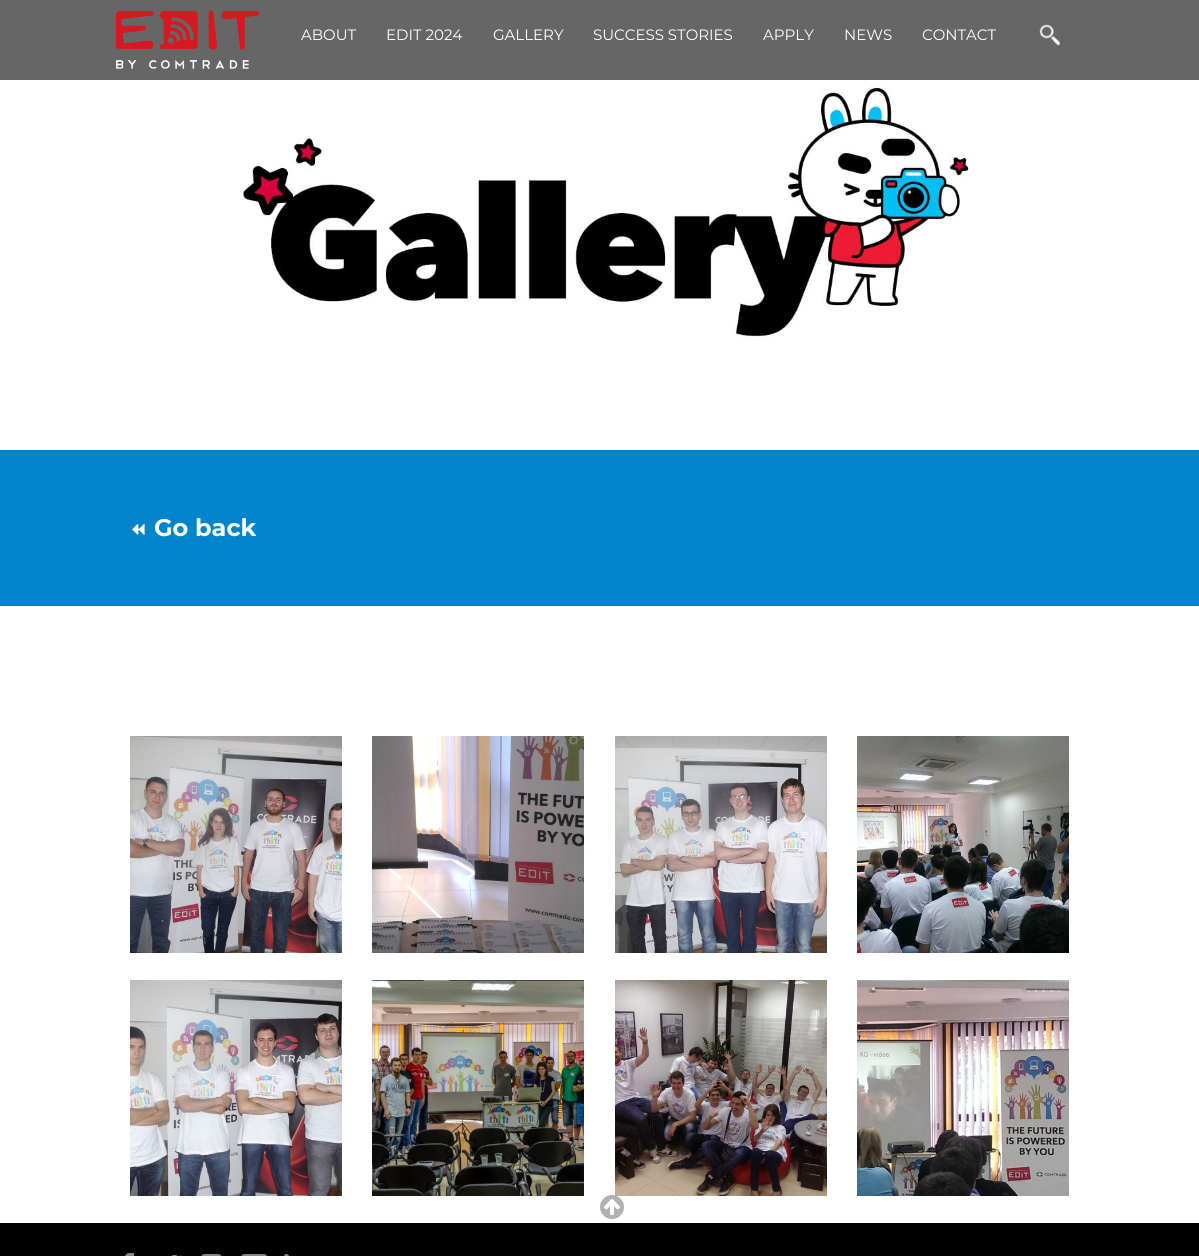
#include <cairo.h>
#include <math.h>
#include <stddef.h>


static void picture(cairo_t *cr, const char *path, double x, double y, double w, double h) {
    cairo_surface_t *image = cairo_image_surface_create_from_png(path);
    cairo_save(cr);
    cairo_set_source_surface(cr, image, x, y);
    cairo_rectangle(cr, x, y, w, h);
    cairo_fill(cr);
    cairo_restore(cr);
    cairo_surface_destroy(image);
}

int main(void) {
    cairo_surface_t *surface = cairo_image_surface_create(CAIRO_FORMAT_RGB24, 1199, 1256);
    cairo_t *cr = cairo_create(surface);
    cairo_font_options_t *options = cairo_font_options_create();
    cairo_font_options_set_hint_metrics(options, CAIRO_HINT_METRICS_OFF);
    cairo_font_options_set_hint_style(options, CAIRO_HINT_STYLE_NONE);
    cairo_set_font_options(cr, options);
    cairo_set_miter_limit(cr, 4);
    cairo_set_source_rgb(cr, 1, 1, 1);
    cairo_paint(cr);
    cairo_set_source_rgb(cr, 0.4, 0.4, 0.4);
    cairo_rectangle(cr, 0, 0, 1199, 80);
    cairo_fill(cr);
    picture(cr, "img1.png", 115, 10, 145, 59);
    cairo_select_font_face(cr, "Montserrat", CAIRO_FONT_SLANT_NORMAL, CAIRO_FONT_WEIGHT_NORMAL);
    cairo_set_font_size(cr, 15);
    cairo_set_source_rgb(cr, 1, 1, 1);
    cairo_move_to(cr, 301, 40);
    cairo_show_text(cr, "ABOUT");
    cairo_move_to(cr, 386, 40);
    cairo_show_text(cr, "EDIT 2024");
    cairo_move_to(cr, 493, 40);
    cairo_show_text(cr, "GALLERY");
    cairo_move_to(cr, 593, 40);
    cairo_show_text(cr, "SUCCESS STORIES");
    cairo_move_to(cr, 763, 40);
    cairo_show_text(cr, "APPLY");
    cairo_move_to(cr, 844, 40);
    cairo_show_text(cr, "NEWS");
    cairo_move_to(cr, 922, 40);
    cairo_show_text(cr, "CONTACT");
    picture(cr, "img2.png", 1039, 24, 21, 22);
    picture(cr, "img3.png", 240, 85, 730, 254);
    cairo_set_source_rgb(cr, 0, 0.518, 0.8);
    cairo_rectangle(cr, 0, 450, 1199, 156);
    cairo_fill(cr);
    picture(cr, "img4.png", 132, 524, 13, 11);
    cairo_select_font_face(cr, "Montserrat", CAIRO_FONT_SLANT_NORMAL, CAIRO_FONT_WEIGHT_BOLD);
    cairo_set_font_size(cr, 24);
    cairo_set_source_rgb(cr, 1, 1, 1);
    cairo_move_to(cr, 154, 536);
    cairo_show_text(cr, "Go back");
    picture(cr, "img5.png", 130, 736, 212, 217);
    picture(cr, "img6.png", 372, 736, 212, 217);
    picture(cr, "img7.png", 615, 736, 212, 217);
    picture(cr, "img8.png", 857, 736, 212, 217);
    picture(cr, "img9.png", 130, 980, 212, 216);
    picture(cr, "img10.png", 372, 980, 212, 216);
    picture(cr, "img11.png", 615, 980, 212, 216);
    picture(cr, "img12.png", 857, 980, 212, 216);
    cairo_set_source_rgb(cr, 0, 0, 0);
    cairo_rectangle(cr, 0, 1223, 1199, 33);
    cairo_fill(cr);
    picture(cr, "img13.png", 600, 1195, 24, 24);
    picture(cr, "img14.png", 125, 1253, 9, 3);
    picture(cr, "img15.png", 159, 1255, 23, 1);
    picture(cr, "img16.png", 201, 1254, 21, 2);
    picture(cr, "img17.png", 241, 1254, 26, 2);
    picture(cr, "img18.png", 284, 1254, 5, 2);
    cairo_surface_write_to_png(surface, "page.png");
    cairo_font_options_destroy(options);
    cairo_destroy(cr);
    cairo_surface_destroy(surface);
    return 0;
}
